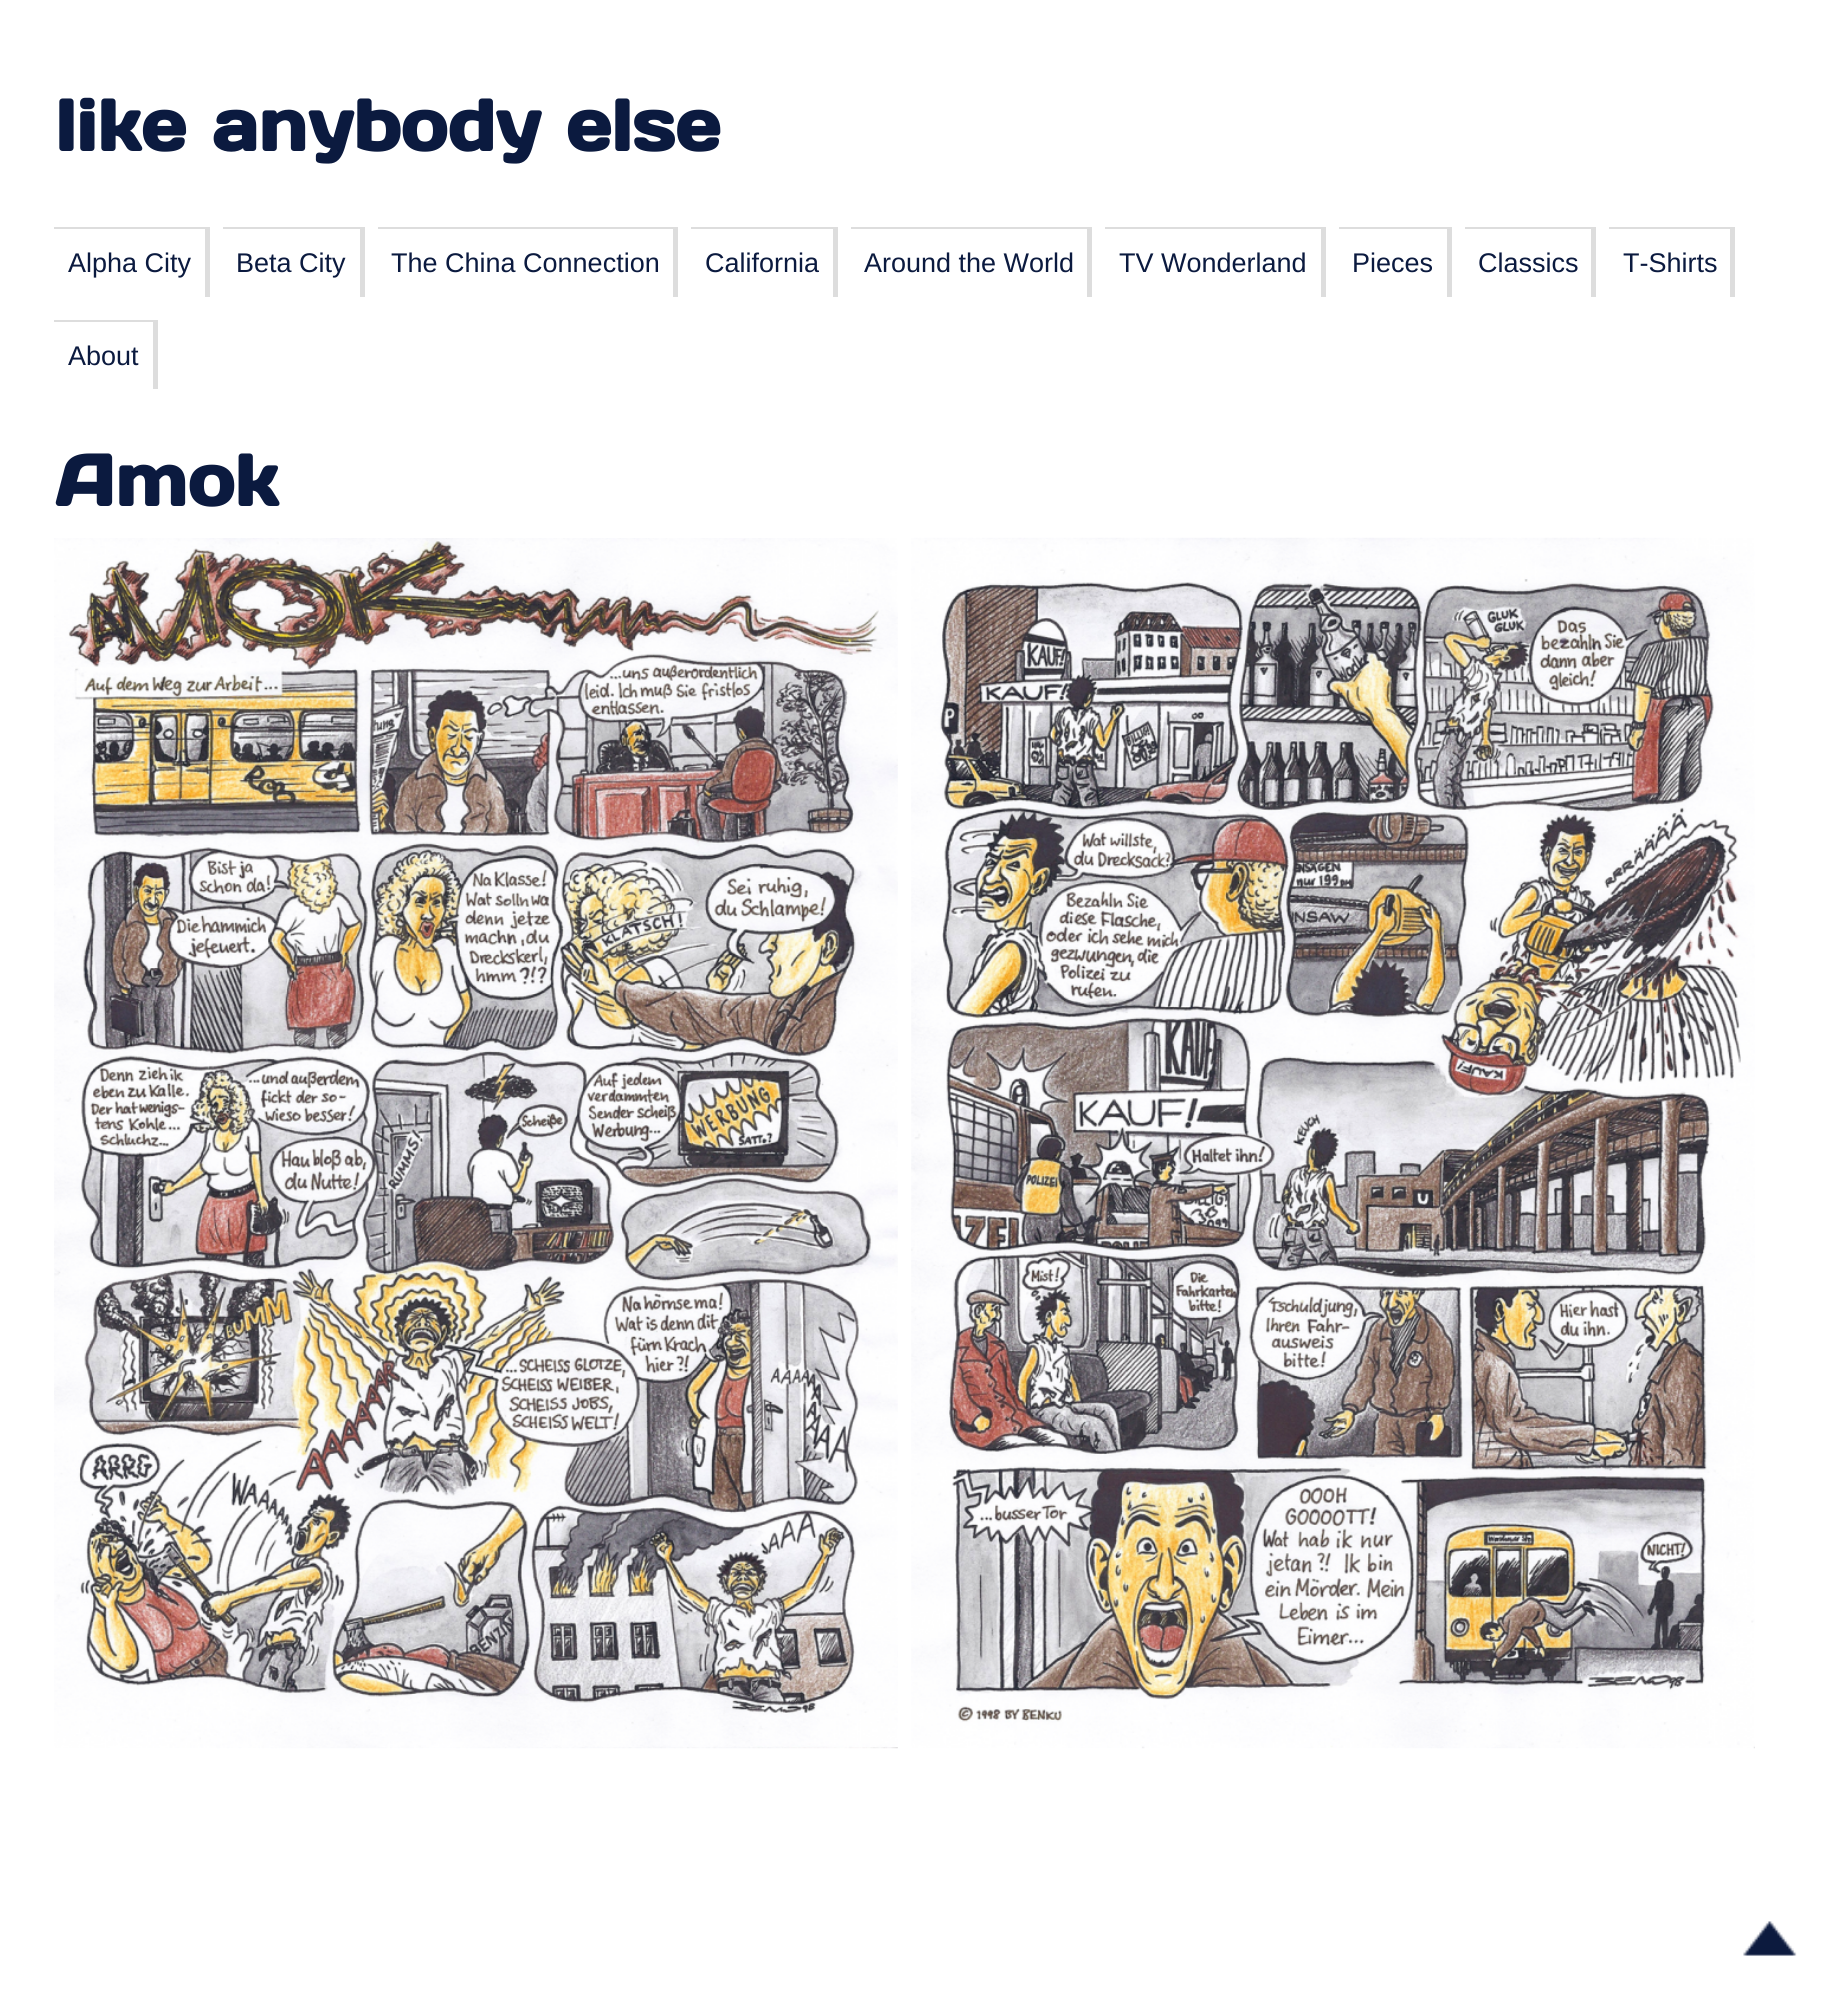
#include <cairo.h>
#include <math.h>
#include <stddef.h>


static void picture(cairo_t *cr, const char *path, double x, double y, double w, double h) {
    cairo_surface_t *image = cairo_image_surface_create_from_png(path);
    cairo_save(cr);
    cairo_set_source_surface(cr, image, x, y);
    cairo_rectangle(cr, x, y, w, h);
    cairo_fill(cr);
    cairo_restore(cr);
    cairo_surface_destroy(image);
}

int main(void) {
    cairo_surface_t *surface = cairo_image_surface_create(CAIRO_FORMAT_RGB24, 1831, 1999);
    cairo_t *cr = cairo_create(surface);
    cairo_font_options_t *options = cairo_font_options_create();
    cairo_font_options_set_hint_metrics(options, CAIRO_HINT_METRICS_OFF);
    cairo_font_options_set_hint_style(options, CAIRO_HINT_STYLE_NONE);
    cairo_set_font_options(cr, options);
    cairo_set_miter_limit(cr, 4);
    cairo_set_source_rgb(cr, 1, 1, 1);
    cairo_paint(cr);
    cairo_select_font_face(cr, "Days One", CAIRO_FONT_SLANT_NORMAL, CAIRO_FONT_WEIGHT_BOLD);
    cairo_set_font_size(cr, 72);
    cairo_set_source_rgb(cr, 0.043, 0.102, 0.247);
    cairo_move_to(cr, 55, 151);
    cairo_show_text(cr, "like anybody else");
    cairo_set_source_rgb(cr, 0.867, 0.867, 0.867);
    cairo_rectangle(cr, 54, 227, 155, 2);
    cairo_fill(cr);
    cairo_rectangle(cr, 205, 227, 5, 70);
    cairo_fill(cr);
    cairo_select_font_face(cr, "Liberation Sans", CAIRO_FONT_SLANT_NORMAL, CAIRO_FONT_WEIGHT_NORMAL);
    cairo_set_font_size(cr, 27);
    cairo_set_source_rgb(cr, 0.043, 0.102, 0.247);
    cairo_move_to(cr, 68, 272);
    cairo_show_text(cr, "Alpha City");
    cairo_set_source_rgb(cr, 0.867, 0.867, 0.867);
    cairo_rectangle(cr, 223, 227, 142, 2);
    cairo_fill(cr);
    cairo_rectangle(cr, 360, 227, 5, 70);
    cairo_fill(cr);
    cairo_set_source_rgb(cr, 0.043, 0.102, 0.247);
    cairo_move_to(cr, 236, 272);
    cairo_show_text(cr, "Beta City");
    cairo_set_source_rgb(cr, 0.867, 0.867, 0.867);
    cairo_rectangle(cr, 378, 227, 299, 2);
    cairo_fill(cr);
    cairo_rectangle(cr, 673, 227, 5, 70);
    cairo_fill(cr);
    cairo_set_source_rgb(cr, 0.043, 0.102, 0.247);
    cairo_move_to(cr, 391, 272);
    cairo_show_text(cr, "The China Connection");
    cairo_set_source_rgb(cr, 0.867, 0.867, 0.867);
    cairo_rectangle(cr, 691, 227, 146, 2);
    cairo_fill(cr);
    cairo_rectangle(cr, 833, 227, 5, 70);
    cairo_fill(cr);
    cairo_set_source_rgb(cr, 0.043, 0.102, 0.247);
    cairo_move_to(cr, 705, 272);
    cairo_show_text(cr, "California");
    cairo_set_source_rgb(cr, 0.867, 0.867, 0.867);
    cairo_rectangle(cr, 851, 227, 240, 2);
    cairo_fill(cr);
    cairo_rectangle(cr, 1087, 227, 5, 70);
    cairo_fill(cr);
    cairo_set_source_rgb(cr, 0.043, 0.102, 0.247);
    cairo_move_to(cr, 864, 272);
    cairo_show_text(cr, "Around the World");
    cairo_set_source_rgb(cr, 0.867, 0.867, 0.867);
    cairo_rectangle(cr, 1105, 227, 220, 2);
    cairo_fill(cr);
    cairo_rectangle(cr, 1321, 227, 5, 70);
    cairo_fill(cr);
    cairo_set_source_rgb(cr, 0.043, 0.102, 0.247);
    cairo_move_to(cr, 1119, 272);
    cairo_show_text(cr, "TV Wonderland");
    cairo_set_source_rgb(cr, 0.867, 0.867, 0.867);
    cairo_rectangle(cr, 1339, 227, 112, 2);
    cairo_fill(cr);
    cairo_rectangle(cr, 1447, 227, 5, 70);
    cairo_fill(cr);
    cairo_set_source_rgb(cr, 0.043, 0.102, 0.247);
    cairo_move_to(cr, 1352, 272);
    cairo_show_text(cr, "Pieces");
    cairo_set_source_rgb(cr, 0.867, 0.867, 0.867);
    cairo_rectangle(cr, 1465, 227, 130, 2);
    cairo_fill(cr);
    cairo_rectangle(cr, 1591, 227, 5, 70);
    cairo_fill(cr);
    cairo_set_source_rgb(cr, 0.043, 0.102, 0.247);
    cairo_move_to(cr, 1478, 272);
    cairo_show_text(cr, "Classics");
    cairo_set_source_rgb(cr, 0.867, 0.867, 0.867);
    cairo_rectangle(cr, 1609, 227, 126, 2);
    cairo_fill(cr);
    cairo_rectangle(cr, 1730, 227, 5, 70);
    cairo_fill(cr);
    cairo_set_source_rgb(cr, 0.043, 0.102, 0.247);
    cairo_move_to(cr, 1623, 272);
    cairo_show_text(cr, "T-Shirts");
    cairo_set_source_rgb(cr, 0.867, 0.867, 0.867);
    cairo_rectangle(cr, 54, 320, 104, 2);
    cairo_fill(cr);
    cairo_rectangle(cr, 153, 320, 5, 69);
    cairo_fill(cr);
    cairo_set_source_rgb(cr, 0.043, 0.102, 0.247);
    cairo_move_to(cr, 68, 365);
    cairo_show_text(cr, "About");
    cairo_select_font_face(cr, "Days One", CAIRO_FONT_SLANT_NORMAL, CAIRO_FONT_WEIGHT_BOLD);
    cairo_set_font_size(cr, 72);
    cairo_move_to(cr, 55, 506);
    cairo_show_text(cr, "Amok");
    picture(cr, "img1.png", 54, 538, 844, 1211);
    picture(cr, "img2.png", 911, 537, 844, 1212);
    picture(cr, "img3.png", 1743, 1921, 54, 35);
    cairo_surface_write_to_png(surface, "page.png");
    cairo_font_options_destroy(options);
    cairo_destroy(cr);
    cairo_surface_destroy(surface);
    return 0;
}
